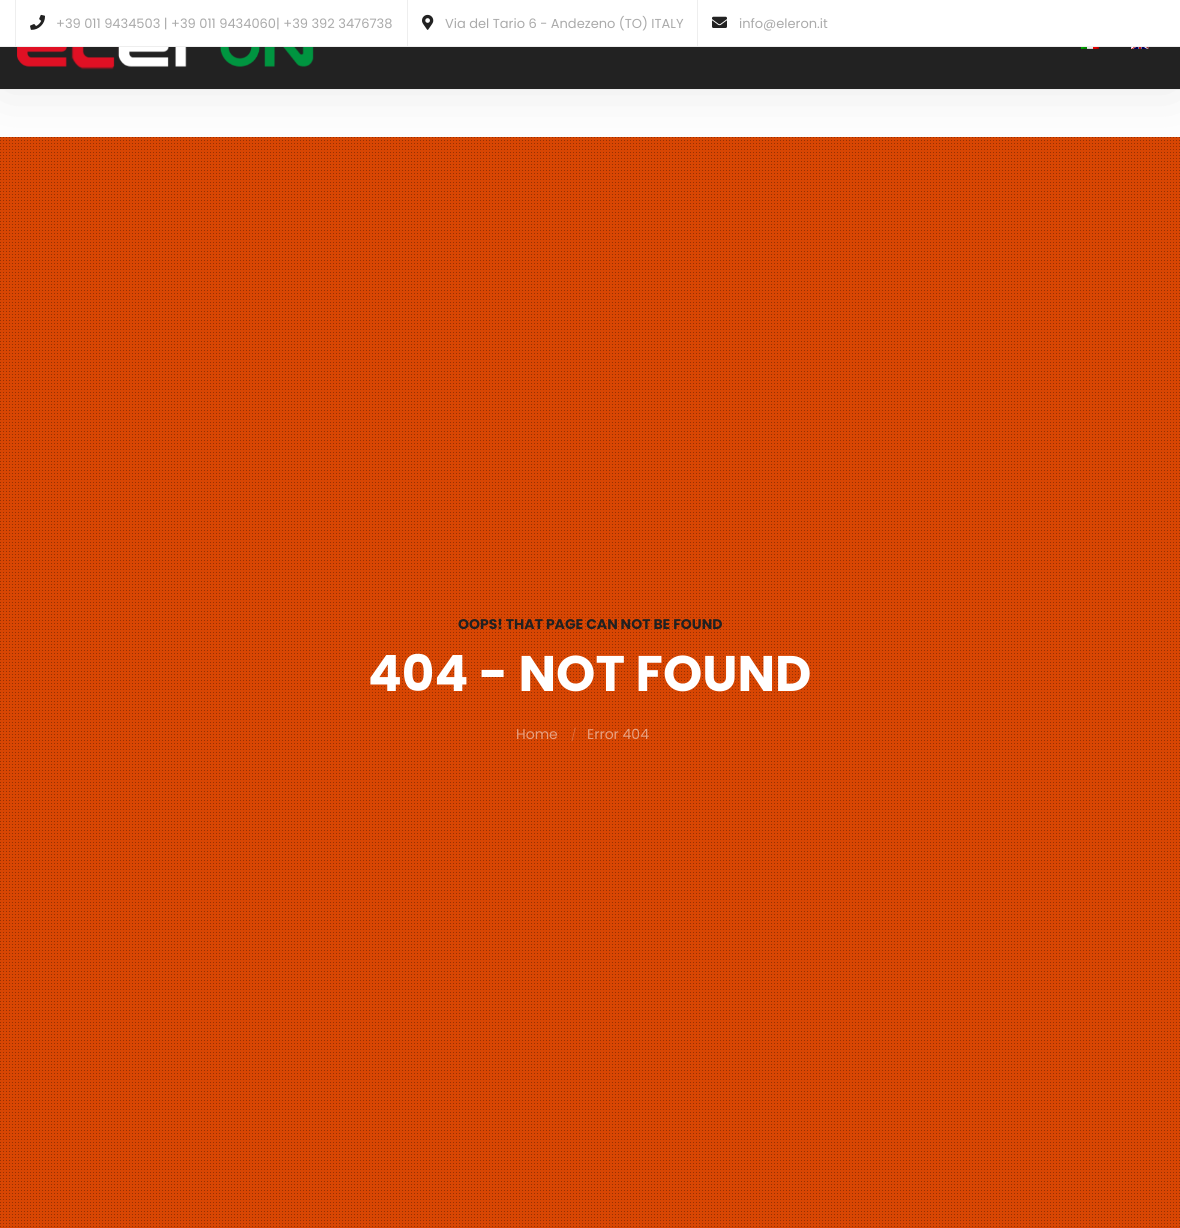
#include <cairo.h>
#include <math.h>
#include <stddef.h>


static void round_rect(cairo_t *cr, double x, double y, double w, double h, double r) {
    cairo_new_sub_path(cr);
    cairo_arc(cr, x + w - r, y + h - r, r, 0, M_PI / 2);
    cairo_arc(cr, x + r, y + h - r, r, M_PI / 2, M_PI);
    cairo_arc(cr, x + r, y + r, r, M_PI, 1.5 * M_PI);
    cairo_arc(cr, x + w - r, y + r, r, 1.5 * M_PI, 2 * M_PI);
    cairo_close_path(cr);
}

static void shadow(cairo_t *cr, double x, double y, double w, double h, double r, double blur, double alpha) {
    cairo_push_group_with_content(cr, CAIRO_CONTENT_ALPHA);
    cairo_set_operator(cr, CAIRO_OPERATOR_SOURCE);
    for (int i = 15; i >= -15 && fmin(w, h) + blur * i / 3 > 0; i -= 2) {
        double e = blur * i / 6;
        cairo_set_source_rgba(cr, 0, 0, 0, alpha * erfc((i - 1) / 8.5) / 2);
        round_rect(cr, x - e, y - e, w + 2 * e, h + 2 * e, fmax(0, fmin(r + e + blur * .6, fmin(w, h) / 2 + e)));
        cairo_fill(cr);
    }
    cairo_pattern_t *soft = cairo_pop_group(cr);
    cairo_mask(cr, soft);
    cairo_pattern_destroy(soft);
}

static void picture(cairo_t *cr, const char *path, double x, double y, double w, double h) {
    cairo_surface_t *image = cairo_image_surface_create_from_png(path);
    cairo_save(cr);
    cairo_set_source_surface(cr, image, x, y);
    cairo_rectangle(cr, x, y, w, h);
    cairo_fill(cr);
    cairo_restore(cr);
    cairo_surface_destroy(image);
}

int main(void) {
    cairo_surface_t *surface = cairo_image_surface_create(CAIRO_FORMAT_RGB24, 1180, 1228);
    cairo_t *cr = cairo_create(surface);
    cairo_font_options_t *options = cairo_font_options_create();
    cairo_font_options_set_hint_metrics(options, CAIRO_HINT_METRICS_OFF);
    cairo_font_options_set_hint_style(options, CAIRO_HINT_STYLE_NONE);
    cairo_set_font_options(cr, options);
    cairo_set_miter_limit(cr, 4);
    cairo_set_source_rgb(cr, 1, 1, 1);
    cairo_paint(cr);
    cairo_set_source_rgb(cr, 0.847, 0.275, 0.012);
    cairo_rectangle(cr, 0, 137, 1180, 1091);
    cairo_fill(cr);
    picture(cr, "img7.png", 0, 137, 1180, 1090);
    cairo_set_source_rgb(cr, 0, 0, 0);
    shadow(cr, 0, 0, 1180, 90, 0, 32.5, 0.09);
    cairo_set_source_rgb(cr, 0.133, 0.133, 0.133);
    cairo_rectangle(cr, 0, 47, 1180, 42);
    cairo_fill(cr);
    cairo_set_source_rgb(cr, 0.933, 0.933, 0.933);
    cairo_rectangle(cr, 0, 89, 1180, 1);
    cairo_fill(cr);
    picture(cr, "img1.png", 17, 47, 297, 23);
    picture(cr, "img2.png", 1081, 47, 18, 2);
    picture(cr, "img3.png", 1131, 47, 18, 2);
    cairo_set_source_rgb(cr, 1, 1, 1);
    cairo_rectangle(cr, 0, 0, 1180, 46);
    cairo_fill(cr);
    cairo_set_source_rgb(cr, 0.933, 0.933, 0.933);
    cairo_rectangle(cr, 0, 46, 1180, 1);
    cairo_fill(cr);
    cairo_rectangle(cr, 15, 0, 1, 46);
    cairo_fill(cr);
    picture(cr, "img4.png", 30, 14, 15, 16);
    cairo_select_font_face(cr, "Poppins", CAIRO_FONT_SLANT_NORMAL, CAIRO_FONT_WEIGHT_NORMAL);
    cairo_set_font_size(cr, 13);
    cairo_set_source_rgb(cr, 0.667, 0.667, 0.667);
    cairo_move_to(cr, 56, 28);
    cairo_show_text(cr, "+39 011 9434503 | +39 011 9434060| +39 392 3476738");
    cairo_set_source_rgb(cr, 0.933, 0.933, 0.933);
    cairo_rectangle(cr, 407, 0, 1, 46);
    cairo_fill(cr);
    picture(cr, "img5.png", 422, 14, 12, 16);
    cairo_set_source_rgb(cr, 0.667, 0.667, 0.667);
    cairo_move_to(cr, 445, 28);
    cairo_show_text(cr, "Via del Tario 6 - Andezeno (TO) ITALY");
    cairo_set_source_rgb(cr, 0.933, 0.933, 0.933);
    cairo_rectangle(cr, 697, 0, 1, 46);
    cairo_fill(cr);
    picture(cr, "img6.png", 712, 16, 15, 12);
    cairo_set_source_rgb(cr, 0.667, 0.667, 0.667);
    cairo_move_to(cr, 739, 28);
    cairo_show_text(cr, "info@eleron.it");
    cairo_select_font_face(cr, "Poppins", CAIRO_FONT_SLANT_NORMAL, CAIRO_FONT_WEIGHT_BOLD);
    cairo_set_font_size(cr, 14);
    cairo_set_source_rgb(cr, 0.129, 0.129, 0.129);
    cairo_move_to(cr, 458, 629);
    cairo_show_text(cr, "OOPS! THAT PAGE CAN NOT BE FOUND");
    cairo_set_font_size(cr, 50);
    cairo_set_source_rgb(cr, 1, 1, 1);
    cairo_move_to(cr, 368, 691);
    cairo_show_text(cr, "404 - NOT FOUND");
    cairo_select_font_face(cr, "Poppins", CAIRO_FONT_SLANT_NORMAL, CAIRO_FONT_WEIGHT_NORMAL);
    cairo_set_font_size(cr, 14);
    cairo_set_source_rgb(cr, 0.91, 0.631, 0.506);
    cairo_move_to(cr, 516, 739);
    cairo_show_text(cr, "Home");
    cairo_select_font_face(cr, "Poppins Light", CAIRO_FONT_SLANT_NORMAL, CAIRO_FONT_WEIGHT_NORMAL);
    cairo_set_font_size(cr, 12);
    cairo_set_source_rgb(cr, 0.867, 0.451, 0.259);
    cairo_move_to(cr, 571, 739);
    cairo_show_text(cr, "/");
    cairo_select_font_face(cr, "Poppins", CAIRO_FONT_SLANT_NORMAL, CAIRO_FONT_WEIGHT_NORMAL);
    cairo_set_font_size(cr, 14);
    cairo_set_source_rgb(cr, 0.91, 0.631, 0.506);
    cairo_move_to(cr, 587, 739);
    cairo_show_text(cr, "Error 404");
    cairo_surface_write_to_png(surface, "page.png");
    cairo_font_options_destroy(options);
    cairo_destroy(cr);
    cairo_surface_destroy(surface);
    return 0;
}
